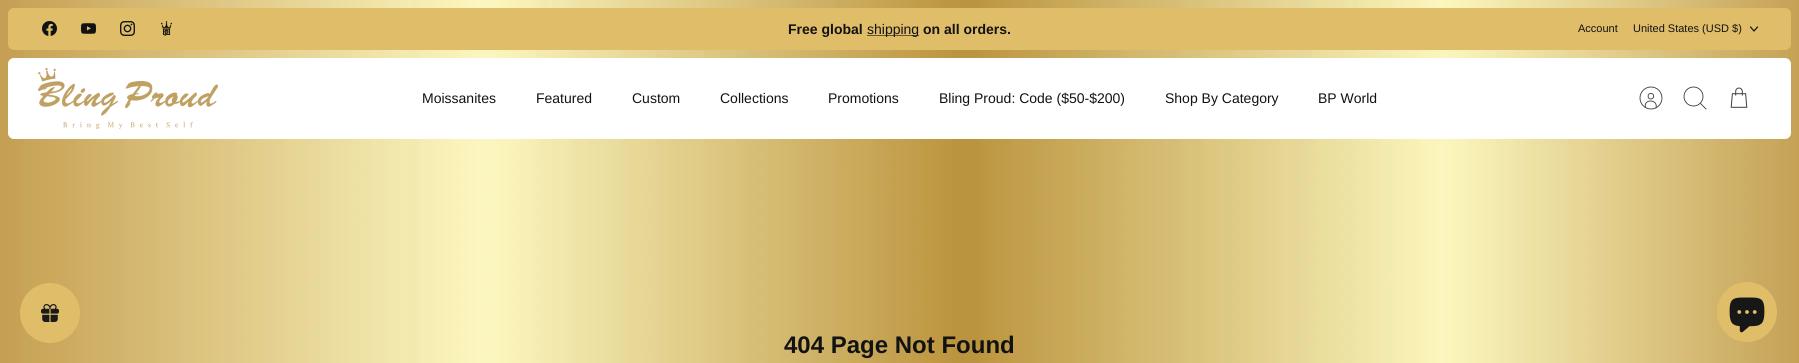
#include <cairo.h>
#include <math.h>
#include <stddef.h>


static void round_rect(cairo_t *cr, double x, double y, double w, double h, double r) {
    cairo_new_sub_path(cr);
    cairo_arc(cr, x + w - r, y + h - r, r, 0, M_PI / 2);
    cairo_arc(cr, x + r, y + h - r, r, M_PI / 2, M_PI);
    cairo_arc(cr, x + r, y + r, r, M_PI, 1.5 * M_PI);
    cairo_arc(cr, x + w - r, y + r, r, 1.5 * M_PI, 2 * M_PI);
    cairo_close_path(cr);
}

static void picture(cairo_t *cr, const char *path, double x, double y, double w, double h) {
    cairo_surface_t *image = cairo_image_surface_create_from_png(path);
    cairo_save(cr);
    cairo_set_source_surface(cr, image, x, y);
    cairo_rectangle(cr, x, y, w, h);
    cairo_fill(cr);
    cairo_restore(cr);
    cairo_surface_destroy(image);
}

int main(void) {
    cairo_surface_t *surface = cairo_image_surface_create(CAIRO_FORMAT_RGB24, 1799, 363);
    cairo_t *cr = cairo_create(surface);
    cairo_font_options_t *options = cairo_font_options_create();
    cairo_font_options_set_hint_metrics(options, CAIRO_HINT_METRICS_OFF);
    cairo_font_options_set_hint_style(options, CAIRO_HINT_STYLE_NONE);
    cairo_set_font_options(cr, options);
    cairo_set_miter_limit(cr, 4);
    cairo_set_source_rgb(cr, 1, 1, 1);
    cairo_paint(cr);
    picture(cr, "img1.png", 0, 0, 1799, 363);
    cairo_set_source_rgb(cr, 0.875, 0.741, 0.412);
    round_rect(cr, 8, 8, 1783, 42, 6);
    cairo_fill(cr);
    picture(cr, "img2.png", 42, 21, 15, 15);
    picture(cr, "img3.png", 81, 23, 15, 11);
    picture(cr, "img4.png", 120, 21, 15, 15);
    picture(cr, "img5.png", 161, 21, 11, 15);
    cairo_select_font_face(cr, "Liberation Sans", CAIRO_FONT_SLANT_NORMAL, CAIRO_FONT_WEIGHT_BOLD);
    cairo_set_font_size(cr, 14);
    cairo_set_source_rgb(cr, 0.071, 0.071, 0.071);
    cairo_move_to(cr, 788, 34);
    cairo_show_text(cr, "Free global");
    cairo_set_source_rgb(cr, 0.392, 0.337, 0.208);
    cairo_rectangle(cr, 867, 35, 52, 1);
    cairo_fill(cr);
    cairo_select_font_face(cr, "Liberation Sans", CAIRO_FONT_SLANT_NORMAL, CAIRO_FONT_WEIGHT_NORMAL);
    cairo_set_source_rgb(cr, 0.071, 0.071, 0.071);
    cairo_move_to(cr, 867, 34);
    cairo_show_text(cr, "shipping");
    cairo_select_font_face(cr, "Liberation Sans", CAIRO_FONT_SLANT_NORMAL, CAIRO_FONT_WEIGHT_BOLD);
    cairo_move_to(cr, 923, 34);
    cairo_show_text(cr, "on all orders.");
    cairo_select_font_face(cr, "Liberation Sans", CAIRO_FONT_SLANT_NORMAL, CAIRO_FONT_WEIGHT_NORMAL);
    cairo_set_font_size(cr, 11);
    cairo_move_to(cr, 1578, 32);
    cairo_show_text(cr, "Account");
    cairo_move_to(cr, 1633, 32);
    cairo_show_text(cr, "United States (USD $)");
    cairo_new_path(cr);
    cairo_move_to(cr, 1750.5, 27);
    cairo_line_to(cr, 1754, 31);
    cairo_line_to(cr, 1757.5, 27);
    cairo_set_line_width(cr, 1.2);
    cairo_set_line_cap(cr, CAIRO_LINE_CAP_ROUND);
    cairo_set_line_join(cr, CAIRO_LINE_JOIN_ROUND);
    cairo_stroke(cr);
    cairo_set_source_rgb(cr, 1, 1, 1);
    round_rect(cr, 8, 58, 1783, 81, 6);
    cairo_fill(cr);
    picture(cr, "img6.png", 38, 68, 180, 61);
    cairo_set_font_size(cr, 14);
    cairo_set_source_rgb(cr, 0.071, 0.071, 0.071);
    cairo_move_to(cr, 422, 103);
    cairo_show_text(cr, "Moissanites");
    cairo_move_to(cr, 536, 103);
    cairo_show_text(cr, "Featured");
    cairo_move_to(cr, 632, 103);
    cairo_show_text(cr, "Custom");
    cairo_move_to(cr, 720, 103);
    cairo_show_text(cr, "Collections");
    cairo_move_to(cr, 828, 103);
    cairo_show_text(cr, "Promotions");
    cairo_move_to(cr, 939, 103);
    cairo_show_text(cr, "Bling Proud: Code ($50-$200)");
    cairo_move_to(cr, 1165, 103);
    cairo_show_text(cr, "Shop By Category");
    cairo_move_to(cr, 1318, 103);
    cairo_show_text(cr, "BP World");
    cairo_new_path(cr);
    cairo_move_to(cr, 1656, 108);
    cairo_curve_to(cr, 1658.5, 99, 1643, 98.5, 1645.5, 107.5);
    cairo_set_source_rgb(cr, 0.255, 0.255, 0.255);
    cairo_set_line_width(cr, 0.9);
    cairo_set_line_cap(cr, CAIRO_LINE_CAP_BUTT);
    cairo_set_line_join(cr, CAIRO_LINE_JOIN_MITER);
    cairo_stroke(cr);
    cairo_arc(cr, 1650.9, 96.2, 2.8, 0, 2 * M_PI);
    cairo_stroke(cr);
    cairo_arc(cr, 1651, 98, 11, 0, 2 * M_PI);
    cairo_stroke(cr);
    cairo_arc(cr, 1693.5, 96.5, 9.5, 0, 2 * M_PI);
    cairo_stroke(cr);
    cairo_new_path(cr);
    cairo_move_to(cr, 1700.5, 103.5);
    cairo_line_to(cr, 1706, 109);
    cairo_set_line_cap(cr, CAIRO_LINE_CAP_SQUARE);
    cairo_stroke(cr);
    picture(cr, "img7.png", 1730, 87, 18, 21);
    cairo_set_source_rgb(cr, 0.875, 0.741, 0.412);
    cairo_arc(cr, 50, 313, 30, 0, 2 * M_PI);
    cairo_fill(cr);
    picture(cr, "img8.png", 41, 304, 18, 18);
    cairo_arc(cr, 1747, 312, 30, 0, 2 * M_PI);
    cairo_fill(cr);
    picture(cr, "img9.png", 1729, 297, 36, 36);
    cairo_select_font_face(cr, "Liberation Sans", CAIRO_FONT_SLANT_NORMAL, CAIRO_FONT_WEIGHT_BOLD);
    cairo_set_font_size(cr, 24);
    cairo_set_source_rgb(cr, 0.071, 0.071, 0.071);
    cairo_move_to(cr, 784, 353);
    cairo_show_text(cr, "404 Page Not Found");
    cairo_surface_write_to_png(surface, "page.png");
    cairo_font_options_destroy(options);
    cairo_destroy(cr);
    cairo_surface_destroy(surface);
    return 0;
}
